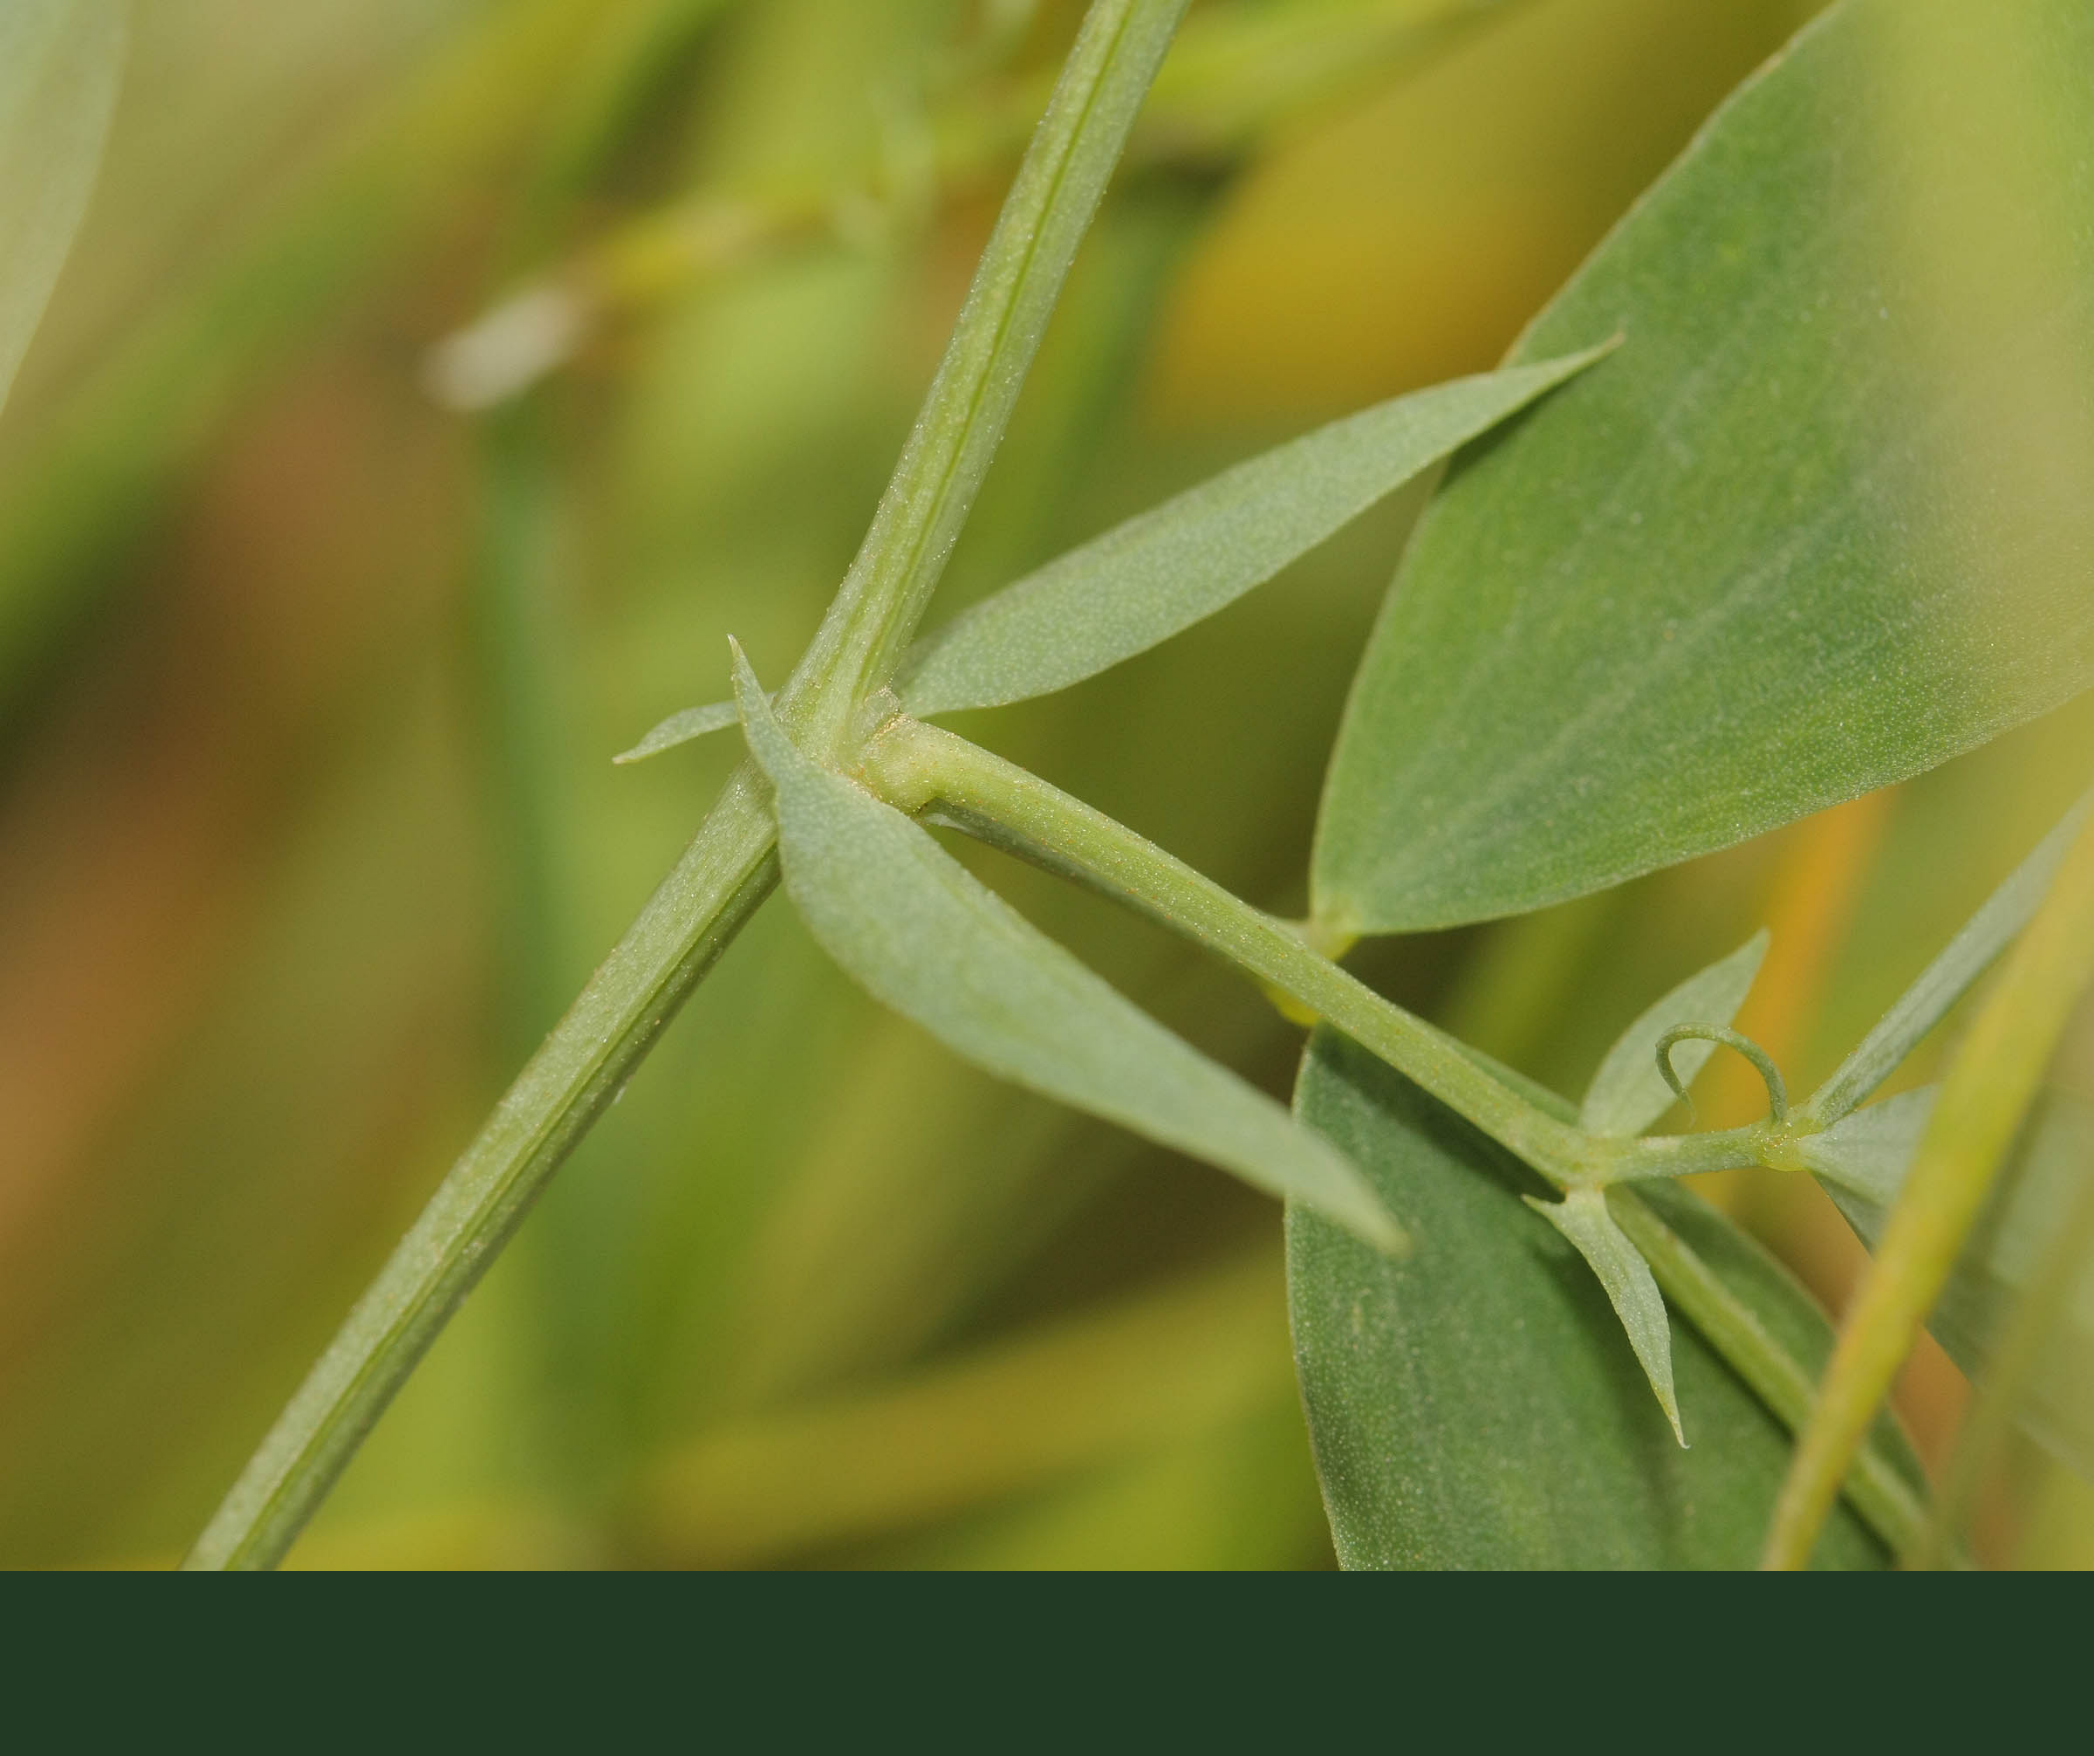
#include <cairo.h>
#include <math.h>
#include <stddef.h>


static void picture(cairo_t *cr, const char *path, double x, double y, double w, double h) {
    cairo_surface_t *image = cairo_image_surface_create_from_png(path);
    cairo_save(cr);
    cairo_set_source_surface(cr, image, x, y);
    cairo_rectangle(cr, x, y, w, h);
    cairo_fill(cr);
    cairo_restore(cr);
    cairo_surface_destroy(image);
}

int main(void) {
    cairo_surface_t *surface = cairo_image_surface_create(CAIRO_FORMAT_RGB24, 2094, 1756);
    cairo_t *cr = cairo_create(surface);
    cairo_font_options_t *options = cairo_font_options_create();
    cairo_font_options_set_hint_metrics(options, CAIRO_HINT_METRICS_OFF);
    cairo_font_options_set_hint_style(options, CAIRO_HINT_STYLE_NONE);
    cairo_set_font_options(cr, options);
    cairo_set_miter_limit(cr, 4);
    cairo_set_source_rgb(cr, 0.133, 0.224, 0.141);
    cairo_paint(cr);
    picture(cr, "img1.png", 0, 0, 2094, 1571);
    cairo_surface_write_to_png(surface, "page.png");
    cairo_font_options_destroy(options);
    cairo_destroy(cr);
    cairo_surface_destroy(surface);
    return 0;
}
